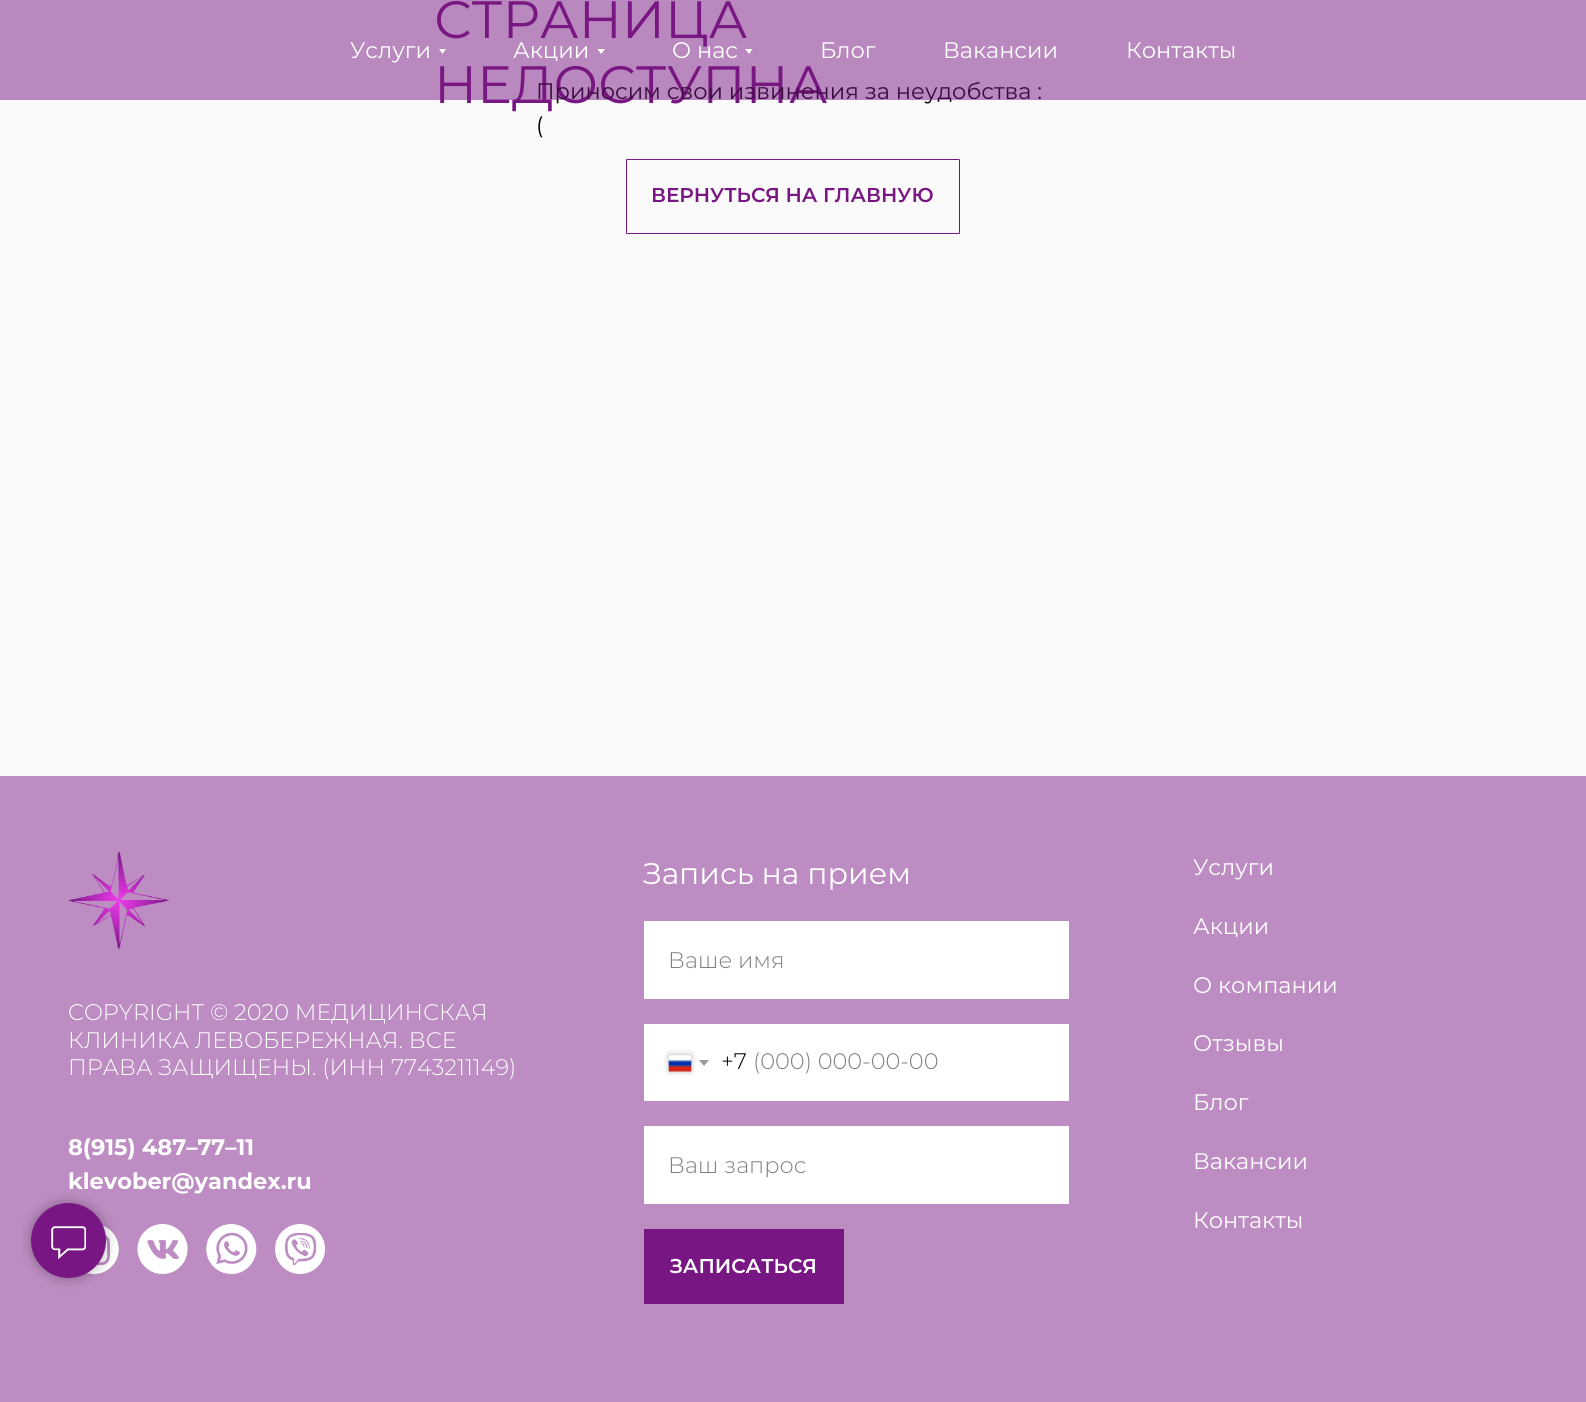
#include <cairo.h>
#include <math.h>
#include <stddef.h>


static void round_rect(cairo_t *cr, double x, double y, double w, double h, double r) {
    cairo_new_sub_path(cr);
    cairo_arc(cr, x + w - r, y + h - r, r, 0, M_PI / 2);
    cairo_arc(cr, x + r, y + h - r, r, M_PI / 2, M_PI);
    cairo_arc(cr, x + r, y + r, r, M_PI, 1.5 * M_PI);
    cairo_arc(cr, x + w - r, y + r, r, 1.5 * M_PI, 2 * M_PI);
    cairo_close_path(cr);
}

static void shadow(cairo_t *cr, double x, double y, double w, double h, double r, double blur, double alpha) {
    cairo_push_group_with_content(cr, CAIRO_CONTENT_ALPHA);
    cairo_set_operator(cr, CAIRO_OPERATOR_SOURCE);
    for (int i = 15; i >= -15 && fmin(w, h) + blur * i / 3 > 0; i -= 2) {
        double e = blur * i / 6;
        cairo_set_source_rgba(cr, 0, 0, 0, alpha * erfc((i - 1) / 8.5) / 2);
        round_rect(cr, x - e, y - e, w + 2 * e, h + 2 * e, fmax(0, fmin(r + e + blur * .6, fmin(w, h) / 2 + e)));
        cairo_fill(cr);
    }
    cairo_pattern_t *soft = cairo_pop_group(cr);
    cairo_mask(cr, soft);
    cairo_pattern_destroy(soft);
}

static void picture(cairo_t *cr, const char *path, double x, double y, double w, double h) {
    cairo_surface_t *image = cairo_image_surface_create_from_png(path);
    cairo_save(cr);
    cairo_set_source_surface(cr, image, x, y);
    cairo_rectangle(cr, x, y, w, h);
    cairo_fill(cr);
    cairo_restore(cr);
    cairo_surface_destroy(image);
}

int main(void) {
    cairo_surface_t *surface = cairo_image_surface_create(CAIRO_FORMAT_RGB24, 1586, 1402);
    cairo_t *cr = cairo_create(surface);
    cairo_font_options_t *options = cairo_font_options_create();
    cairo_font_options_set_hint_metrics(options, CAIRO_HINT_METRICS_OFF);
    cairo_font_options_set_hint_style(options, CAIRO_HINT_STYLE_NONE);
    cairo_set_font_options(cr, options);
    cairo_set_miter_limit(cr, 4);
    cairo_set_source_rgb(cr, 0.737, 0.549, 0.761);
    cairo_paint(cr);
    cairo_set_source_rgb(cr, 0.98, 0.98, 0.98);
    cairo_rectangle(cr, 0, 0, 1586, 776);
    cairo_fill(cr);
    cairo_select_font_face(cr, "Montserrat", CAIRO_FONT_SLANT_NORMAL, CAIRO_FONT_WEIGHT_NORMAL);
    cairo_set_font_size(cr, 52.5);
    cairo_set_source_rgb(cr, 0.471, 0.09, 0.514);
    cairo_move_to(cr, 434, 38);
    cairo_show_text(cr, "СТРАНИЦА");
    cairo_move_to(cr, 434, 103);
    cairo_show_text(cr, "НЕДОСТУПНА");
    cairo_set_font_size(cr, 22.5);
    cairo_set_source_rgb(cr, 0, 0, 0);
    cairo_move_to(cr, 536, 99);
    cairo_show_text(cr, "Приносим свои извинения за неудобства :");
    cairo_move_to(cr, 536, 133);
    cairo_show_text(cr, "(");
    round_rect(cr, 626.5, 159.5, 333, 74, 0.5);
    cairo_set_source_rgb(cr, 0.471, 0.09, 0.514);
    cairo_set_line_width(cr, 1);
    cairo_stroke(cr);
    cairo_select_font_face(cr, "Montserrat SemiBold", CAIRO_FONT_SLANT_NORMAL, CAIRO_FONT_WEIGHT_NORMAL);
    cairo_set_font_size(cr, 20);
    cairo_move_to(cr, 651, 202);
    cairo_show_text(cr, "ВЕРНУТЬСЯ НА ГЛАВНУЮ");
    cairo_set_source_rgba(cr, 0.471, 0.09, 0.514, 0.5);
    cairo_rectangle(cr, 0, 0, 1586, 100);
    cairo_fill(cr);
    cairo_select_font_face(cr, "Montserrat", CAIRO_FONT_SLANT_NORMAL, CAIRO_FONT_WEIGHT_NORMAL);
    cairo_set_font_size(cr, 22.5);
    cairo_set_source_rgb(cr, 1, 1, 1);
    cairo_move_to(cr, 350, 58);
    cairo_show_text(cr, "Услуги");
    cairo_new_path(cr);
    cairo_move_to(cr, 439, 49);
    cairo_line_to(cr, 446, 49);
    cairo_line_to(cr, 442.5, 54);
    cairo_close_path(cr);
    cairo_fill(cr);
    cairo_move_to(cr, 513, 58);
    cairo_show_text(cr, "Акции");
    cairo_new_path(cr);
    cairo_move_to(cr, 597.5, 49);
    cairo_line_to(cr, 605, 49);
    cairo_line_to(cr, 601, 54);
    cairo_close_path(cr);
    cairo_fill(cr);
    cairo_move_to(cr, 672, 58);
    cairo_show_text(cr, "О нас");
    cairo_new_path(cr);
    cairo_move_to(cr, 745, 49);
    cairo_line_to(cr, 752.5, 49);
    cairo_line_to(cr, 749, 54);
    cairo_close_path(cr);
    cairo_fill(cr);
    cairo_move_to(cr, 820, 58);
    cairo_show_text(cr, "Блог");
    cairo_move_to(cr, 943, 58);
    cairo_show_text(cr, "Вакансии");
    cairo_move_to(cr, 1126, 58);
    cairo_show_text(cr, "Контакты");
    picture(cr, "img1.png", 68, 851, 101, 98);
    cairo_set_font_size(cr, 30);
    cairo_move_to(cr, 643, 884);
    cairo_show_text(cr, "Запись на прием");
    cairo_set_font_size(cr, 22.5);
    cairo_move_to(cr, 1193, 875);
    cairo_show_text(cr, "Услуги");
    cairo_move_to(cr, 1193, 934);
    cairo_show_text(cr, "Акции");
    cairo_rectangle(cr, 644, 921, 425, 78);
    cairo_fill(cr);
    cairo_select_font_face(cr, "Montserrat Light", CAIRO_FONT_SLANT_NORMAL, CAIRO_FONT_WEIGHT_NORMAL);
    cairo_set_source_rgb(cr, 0.502, 0.502, 0.502);
    cairo_move_to(cr, 668, 968);
    cairo_show_text(cr, "Ваше имя");
    cairo_set_source_rgb(cr, 1, 1, 1);
    cairo_rectangle(cr, 644, 1024, 425, 77);
    cairo_fill(cr);
    cairo_set_source_rgb(cr, 0, 0, 0);
    shadow(cr, 669, 1055, 22, 16, 0, 3, 0.3);
    picture(cr, "img2.png", 668, 1055, 24, 17);
    cairo_set_source_rgb(cr, 0.604, 0.604, 0.604);
    cairo_new_path(cr);
    cairo_move_to(cr, 699, 1060);
    cairo_line_to(cr, 709, 1060);
    cairo_line_to(cr, 704, 1066);
    cairo_close_path(cr);
    cairo_fill(cr);
    cairo_set_source_rgb(cr, 0, 0, 0);
    cairo_move_to(cr, 721, 1069);
    cairo_show_text(cr, "+7");
    cairo_set_source_rgb(cr, 0.502, 0.502, 0.502);
    cairo_move_to(cr, 753, 1069);
    cairo_show_text(cr, "(000) 000-00-00");
    cairo_set_source_rgb(cr, 1, 1, 1);
    cairo_rectangle(cr, 644, 1126, 425, 78);
    cairo_fill(cr);
    cairo_set_source_rgb(cr, 0.502, 0.502, 0.502);
    cairo_move_to(cr, 668, 1173);
    cairo_show_text(cr, "Ваш запрос");
    cairo_set_source_rgb(cr, 0.471, 0.09, 0.514);
    cairo_rectangle(cr, 644, 1229, 200, 75);
    cairo_fill(cr);
    cairo_select_font_face(cr, "Montserrat SemiBold", CAIRO_FONT_SLANT_NORMAL, CAIRO_FONT_WEIGHT_NORMAL);
    cairo_set_font_size(cr, 20);
    cairo_set_source_rgb(cr, 1, 1, 1);
    cairo_move_to(cr, 670, 1273);
    cairo_show_text(cr, "ЗАПИСАТЬСЯ");
    cairo_select_font_face(cr, "Montserrat", CAIRO_FONT_SLANT_NORMAL, CAIRO_FONT_WEIGHT_NORMAL);
    cairo_set_font_size(cr, 22.5);
    cairo_move_to(cr, 1193, 993);
    cairo_show_text(cr, "О компании");
    cairo_select_font_face(cr, "Montserrat Light", CAIRO_FONT_SLANT_NORMAL, CAIRO_FONT_WEIGHT_NORMAL);
    cairo_move_to(cr, 68, 1020);
    cairo_show_text(cr, "COPYRIGHT © 2020 МЕДИЦИНСКАЯ");
    cairo_move_to(cr, 68, 1048);
    cairo_show_text(cr, "КЛИНИКА ЛЕВОБЕРЕЖНАЯ. ВСЕ");
    cairo_move_to(cr, 68, 1075);
    cairo_show_text(cr, "ПРАВА ЗАЩИЩЕНЫ. (ИНН 7743211149)");
    cairo_select_font_face(cr, "Montserrat", CAIRO_FONT_SLANT_NORMAL, CAIRO_FONT_WEIGHT_NORMAL);
    cairo_move_to(cr, 1193, 1051);
    cairo_show_text(cr, "Отзывы");
    cairo_move_to(cr, 1193, 1110);
    cairo_show_text(cr, "Блог");
    cairo_select_font_face(cr, "Montserrat", CAIRO_FONT_SLANT_NORMAL, CAIRO_FONT_WEIGHT_BOLD);
    cairo_move_to(cr, 68, 1155);
    cairo_show_text(cr, "8(915) 487–77–11");
    cairo_move_to(cr, 68, 1189);
    cairo_show_text(cr, "klevober@yandex.ru");
    cairo_select_font_face(cr, "Montserrat", CAIRO_FONT_SLANT_NORMAL, CAIRO_FONT_WEIGHT_NORMAL);
    cairo_move_to(cr, 1193, 1169);
    cairo_show_text(cr, "Вакансии");
    cairo_move_to(cr, 1193, 1228);
    cairo_show_text(cr, "Контакты");
    picture(cr, "img3.png", 86, 1225, 33, 49);
    picture(cr, "img4.png", 137, 1224, 51, 50);
    picture(cr, "img5.png", 206, 1224, 51, 50);
    picture(cr, "img6.png", 275, 1224, 50, 50);
    cairo_set_source_rgb(cr, 0, 0, 0);
    shadow(cr, 31, 1203, 75, 75, 37.5, 6, 0.3);
    cairo_set_source_rgb(cr, 0.471, 0.09, 0.514);
    cairo_arc(cr, 68.5, 1240.5, 37.5, 0, 2 * M_PI);
    cairo_fill(cr);
    picture(cr, "img7.png", 51, 1226, 35, 33);
    cairo_surface_write_to_png(surface, "page.png");
    cairo_font_options_destroy(options);
    cairo_destroy(cr);
    cairo_surface_destroy(surface);
    return 0;
}
